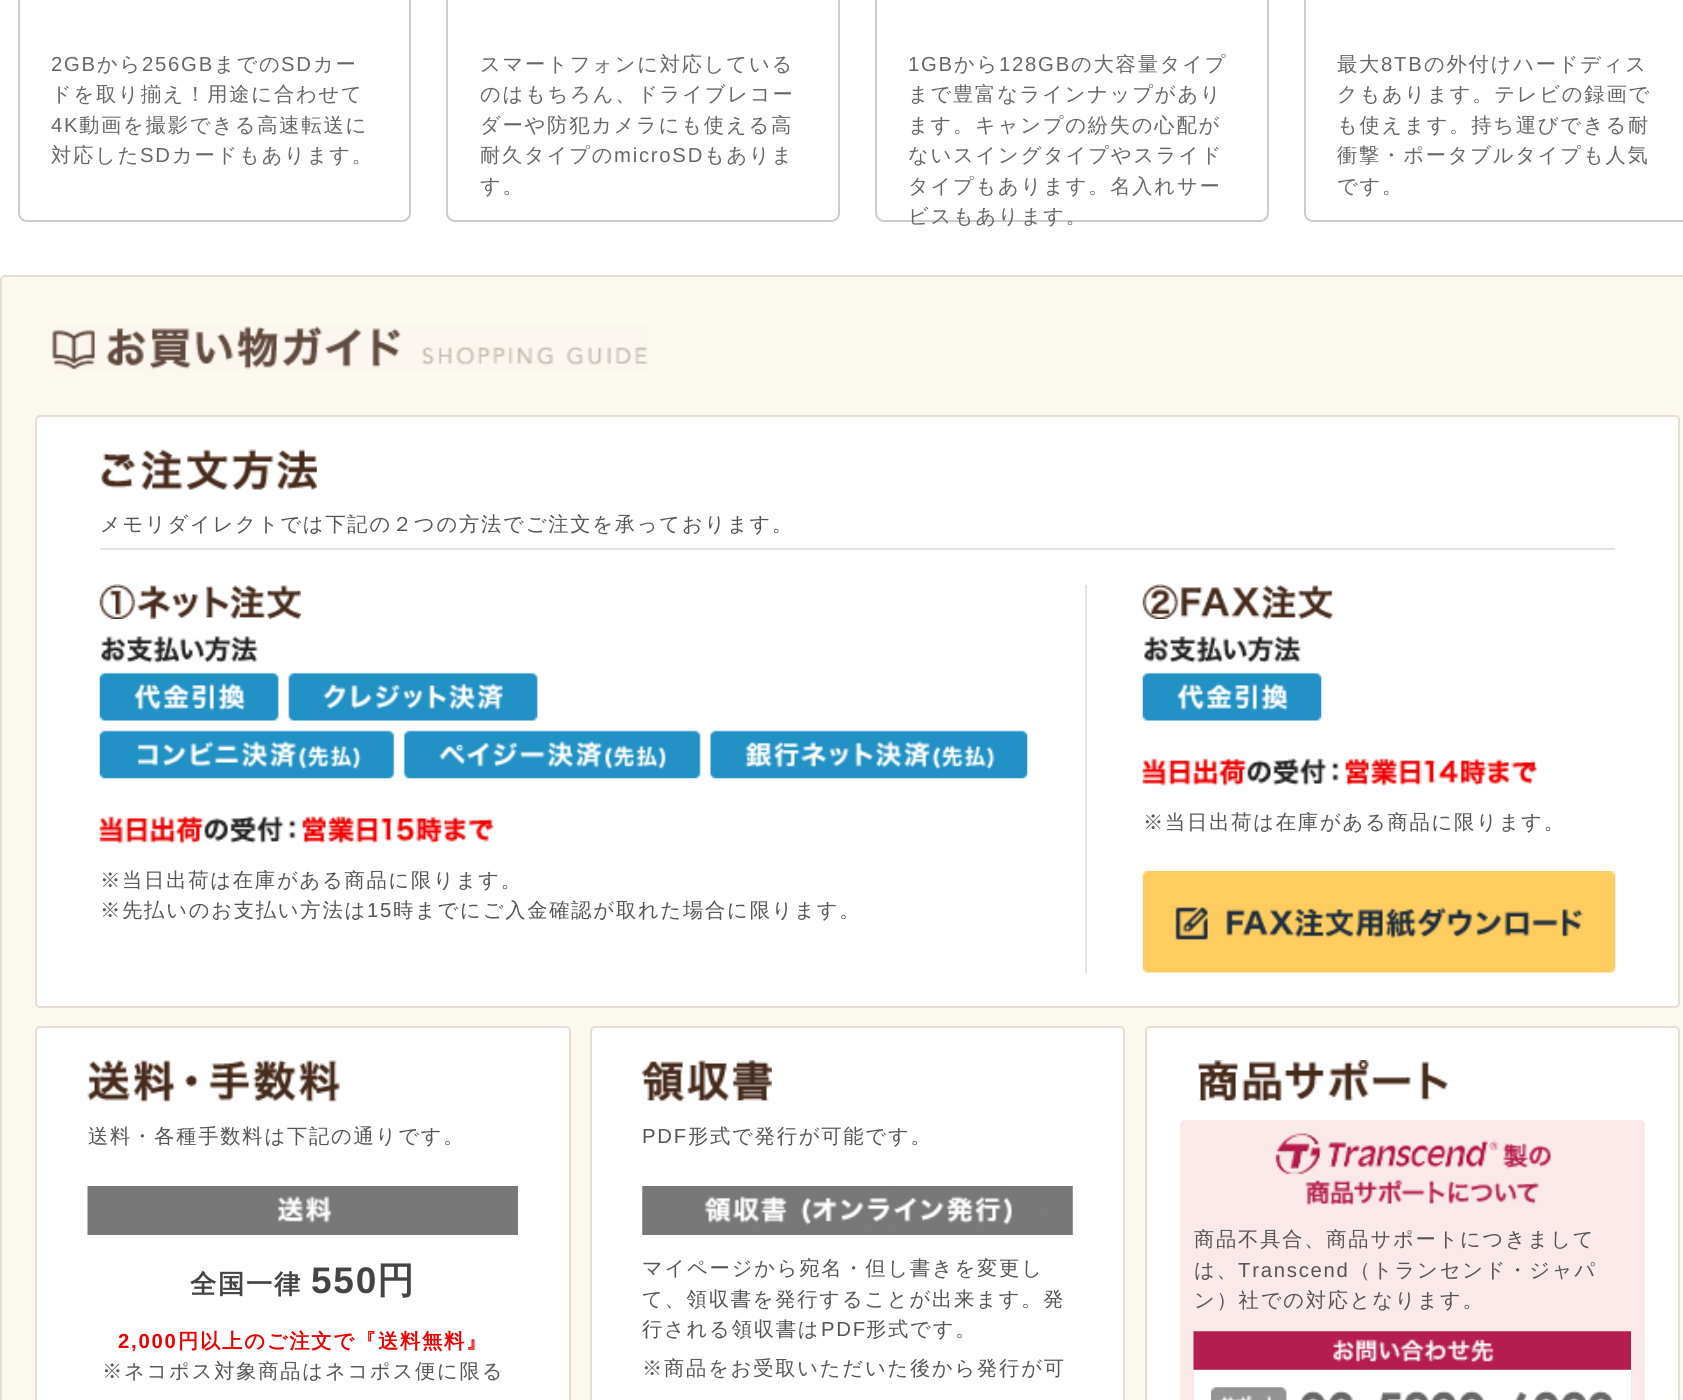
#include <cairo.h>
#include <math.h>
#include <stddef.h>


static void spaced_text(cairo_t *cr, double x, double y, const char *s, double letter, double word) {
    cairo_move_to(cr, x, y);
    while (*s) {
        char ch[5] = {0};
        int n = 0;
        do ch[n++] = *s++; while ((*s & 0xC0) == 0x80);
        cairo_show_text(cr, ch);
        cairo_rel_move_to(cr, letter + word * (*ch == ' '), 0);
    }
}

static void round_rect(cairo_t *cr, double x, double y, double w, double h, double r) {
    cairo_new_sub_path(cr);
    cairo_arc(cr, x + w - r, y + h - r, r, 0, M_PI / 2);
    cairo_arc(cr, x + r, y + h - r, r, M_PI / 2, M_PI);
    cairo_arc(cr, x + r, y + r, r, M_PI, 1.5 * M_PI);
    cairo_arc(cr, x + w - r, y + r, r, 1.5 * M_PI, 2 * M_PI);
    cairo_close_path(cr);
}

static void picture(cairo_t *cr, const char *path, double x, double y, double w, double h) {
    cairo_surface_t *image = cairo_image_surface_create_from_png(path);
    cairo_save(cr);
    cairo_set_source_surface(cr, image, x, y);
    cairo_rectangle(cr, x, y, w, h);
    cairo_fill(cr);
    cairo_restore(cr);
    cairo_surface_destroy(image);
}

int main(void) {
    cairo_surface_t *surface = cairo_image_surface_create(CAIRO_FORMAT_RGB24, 1683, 1400);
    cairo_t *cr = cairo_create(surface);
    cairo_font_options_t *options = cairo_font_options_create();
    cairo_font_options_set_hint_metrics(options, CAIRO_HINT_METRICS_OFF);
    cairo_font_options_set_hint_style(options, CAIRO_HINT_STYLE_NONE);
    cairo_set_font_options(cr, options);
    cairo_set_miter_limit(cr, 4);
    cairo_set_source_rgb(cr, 1, 1, 1);
    cairo_paint(cr);
    round_rect(cr, 19, -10, 391, 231, 8);
    cairo_set_source_rgb(cr, 0.8, 0.8, 0.8);
    cairo_stroke(cr);
    cairo_select_font_face(cr, "Liberation Sans", CAIRO_FONT_SLANT_NORMAL, CAIRO_FONT_WEIGHT_NORMAL);
    cairo_set_font_size(cr, 20.3);
    cairo_set_source_rgb(cr, 0.4, 0.4, 0.4);
    spaced_text(cr, 51, 71, "2GB", 1.75, 0);
    cairo_select_font_face(cr, "WenQuanYi Zen Hei Medium", CAIRO_FONT_SLANT_NORMAL, CAIRO_FONT_WEIGHT_NORMAL);
    spaced_text(cr, 97, 71, "から", 1.75, 0);
    cairo_select_font_face(cr, "Liberation Sans", CAIRO_FONT_SLANT_NORMAL, CAIRO_FONT_WEIGHT_NORMAL);
    spaced_text(cr, 142, 71, "256GB", 1.75, 0);
    cairo_select_font_face(cr, "WenQuanYi Zen Hei Medium", CAIRO_FONT_SLANT_NORMAL, CAIRO_FONT_WEIGHT_NORMAL);
    spaced_text(cr, 214, 71, "までの", 1.75, 0);
    cairo_select_font_face(cr, "Liberation Sans", CAIRO_FONT_SLANT_NORMAL, CAIRO_FONT_WEIGHT_NORMAL);
    spaced_text(cr, 281, 71, "SD", 1.75, 0);
    cairo_select_font_face(cr, "WenQuanYi Zen Hei Medium", CAIRO_FONT_SLANT_NORMAL, CAIRO_FONT_WEIGHT_NORMAL);
    spaced_text(cr, 313, 71, "カー", 1.75, 0);
    spaced_text(cr, 51, 101, "ドを取り揃え！用途に合わせて", 1.75, 0);
    cairo_select_font_face(cr, "Liberation Sans", CAIRO_FONT_SLANT_NORMAL, CAIRO_FONT_WEIGHT_NORMAL);
    spaced_text(cr, 51, 132, "4K", 1.75, 0);
    cairo_select_font_face(cr, "WenQuanYi Zen Hei Medium", CAIRO_FONT_SLANT_NORMAL, CAIRO_FONT_WEIGHT_NORMAL);
    spaced_text(cr, 79, 132, "動画を撮影できる高速転送に", 1.75, 0);
    spaced_text(cr, 51, 162, "対応した", 1.75, 0);
    cairo_select_font_face(cr, "Liberation Sans", CAIRO_FONT_SLANT_NORMAL, CAIRO_FONT_WEIGHT_NORMAL);
    spaced_text(cr, 140, 162, "SD", 1.75, 0);
    cairo_select_font_face(cr, "WenQuanYi Zen Hei Medium", CAIRO_FONT_SLANT_NORMAL, CAIRO_FONT_WEIGHT_NORMAL);
    spaced_text(cr, 172, 162, "カードもあります。", 1.75, 0);
    round_rect(cr, 447, -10, 392, 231, 8);
    cairo_set_source_rgb(cr, 0.8, 0.8, 0.8);
    cairo_stroke(cr);
    cairo_set_source_rgb(cr, 0.4, 0.4, 0.4);
    spaced_text(cr, 480, 71, "スマートフォンに対応している", 1.75, 0);
    spaced_text(cr, 480, 101, "のはもちろん、ドライブレコー", 1.75, 0);
    spaced_text(cr, 480, 132, "ダーや防犯カメラにも使える高", 1.75, 0);
    spaced_text(cr, 480, 162, "耐久タイプの", 1.75, 0);
    cairo_select_font_face(cr, "Liberation Sans", CAIRO_FONT_SLANT_NORMAL, CAIRO_FONT_WEIGHT_NORMAL);
    spaced_text(cr, 614, 162, "microSD", 1.75, 0);
    cairo_select_font_face(cr, "WenQuanYi Zen Hei Medium", CAIRO_FONT_SLANT_NORMAL, CAIRO_FONT_WEIGHT_NORMAL);
    spaced_text(cr, 704, 162, "もありま", 1.75, 0);
    spaced_text(cr, 480, 193, "す。", 1.75, 0);
    round_rect(cr, 876, -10, 392, 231, 8);
    cairo_set_source_rgb(cr, 0.8, 0.8, 0.8);
    cairo_stroke(cr);
    cairo_select_font_face(cr, "Liberation Sans", CAIRO_FONT_SLANT_NORMAL, CAIRO_FONT_WEIGHT_NORMAL);
    cairo_set_source_rgb(cr, 0.4, 0.4, 0.4);
    spaced_text(cr, 908, 71, "1GB", 1.75, 0);
    cairo_select_font_face(cr, "WenQuanYi Zen Hei Medium", CAIRO_FONT_SLANT_NORMAL, CAIRO_FONT_WEIGHT_NORMAL);
    spaced_text(cr, 954, 71, "から", 1.75, 0);
    cairo_select_font_face(cr, "Liberation Sans", CAIRO_FONT_SLANT_NORMAL, CAIRO_FONT_WEIGHT_NORMAL);
    spaced_text(cr, 999, 71, "128GB", 1.75, 0);
    cairo_select_font_face(cr, "WenQuanYi Zen Hei Medium", CAIRO_FONT_SLANT_NORMAL, CAIRO_FONT_WEIGHT_NORMAL);
    spaced_text(cr, 1071, 71, "の大容量タイプ", 1.75, 0);
    spaced_text(cr, 908, 101, "まで豊富なラインナップがあり", 1.75, 0);
    spaced_text(cr, 908, 132, "ます。キャンプの紛失の心配が", 1.75, 0);
    spaced_text(cr, 908, 162, "ないスイングタイプやスライド", 1.75, 0);
    spaced_text(cr, 908, 193, "タイプもあります。名入れサー", 1.75, 0);
    spaced_text(cr, 908, 223, "ビスもあります。", 1.75, 0);
    round_rect(cr, 1305, -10, 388, 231, 8);
    cairo_set_source_rgb(cr, 0.8, 0.8, 0.8);
    cairo_stroke(cr);
    cairo_set_source_rgb(cr, 0.4, 0.4, 0.4);
    spaced_text(cr, 1337, 71, "最大", 1.75, 0);
    cairo_select_font_face(cr, "Liberation Sans", CAIRO_FONT_SLANT_NORMAL, CAIRO_FONT_WEIGHT_NORMAL);
    spaced_text(cr, 1381, 71, "8TB", 1.75, 0);
    cairo_select_font_face(cr, "WenQuanYi Zen Hei Medium", CAIRO_FONT_SLANT_NORMAL, CAIRO_FONT_WEIGHT_NORMAL);
    spaced_text(cr, 1424, 71, "の外付けハードディス", 1.75, 0);
    spaced_text(cr, 1337, 101, "クもあります。テレビの録画で", 1.75, 0);
    spaced_text(cr, 1337, 132, "も使えます。持ち運びできる耐", 1.75, 0);
    spaced_text(cr, 1337, 162, "衝撃・ポータブルタイプも人気", 1.75, 0);
    spaced_text(cr, 1337, 193, "です。", 1.75, 0);
    cairo_set_source_rgb(cr, 0.984, 0.969, 0.941);
    round_rect(cr, 1, 276, 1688, 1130, 4);
    cairo_fill_preserve(cr);
    cairo_set_source_rgb(cr, 0.898, 0.871, 0.835);
    cairo_stroke(cr);
    picture(cr, "img1.png", 52, 326, 596, 44);
    cairo_set_source_rgb(cr, 1, 1, 1);
    round_rect(cr, 36, 416, 1643, 591, 4);
    cairo_fill_preserve(cr);
    cairo_set_source_rgb(cr, 0.898, 0.871, 0.835);
    cairo_stroke(cr);
    picture(cr, "img2.png", 101, 449, 216, 41);
    cairo_set_source_rgb(cr, 0.898, 0.898, 0.898);
    cairo_rectangle(cr, 100, 548, 1515, 2);
    cairo_fill(cr);
    cairo_set_source_rgb(cr, 0.333, 0.333, 0.333);
    spaced_text(cr, 100, 531, "メモリダイレクトでは下記の２つの方法でご注文を承っております。", 1.75, 0);
    cairo_set_source_rgb(cr, 0.898, 0.898, 0.898);
    cairo_rectangle(cr, 1085, 585, 2, 388);
    cairo_fill(cr);
    picture(cr, "img3.png", 1142, 584, 192, 35);
    picture(cr, "img4.png", 1142, 636, 180, 85);
    picture(cr, "img5.png", 1142, 758, 395, 28);
    cairo_set_source_rgb(cr, 0.333, 0.333, 0.333);
    spaced_text(cr, 1143, 829, "※当日出荷は在庫がある商品に限ります。", 1.75, 0);
    picture(cr, "img6.png", 1142, 871, 474, 102);
    picture(cr, "img7.png", 99, 584, 202, 35);
    picture(cr, "img8.png", 99, 636, 929, 143);
    picture(cr, "img9.png", 99, 816, 395, 28);
    spaced_text(cr, 100, 887, "※当日出荷は在庫がある商品に限ります。", 1.75, 0);
    spaced_text(cr, 100, 917, "※先払いのお支払い方法は", 1.75, 0);
    cairo_select_font_face(cr, "Liberation Sans", CAIRO_FONT_SLANT_NORMAL, CAIRO_FONT_WEIGHT_NORMAL);
    spaced_text(cr, 367, 917, "15", 1.75, 0);
    cairo_select_font_face(cr, "WenQuanYi Zen Hei Medium", CAIRO_FONT_SLANT_NORMAL, CAIRO_FONT_WEIGHT_NORMAL);
    spaced_text(cr, 393, 917, "時までにご入金確認が取れた場合に限ります。", 1.75, 0);
    cairo_set_source_rgb(cr, 1, 1, 1);
    round_rect(cr, 36, 1027, 534, 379, 4);
    cairo_fill_preserve(cr);
    cairo_set_source_rgb(cr, 0.898, 0.871, 0.835);
    cairo_stroke(cr);
    picture(cr, "img10.png", 87, 1060, 253, 42);
    cairo_set_source_rgb(cr, 0.333, 0.333, 0.333);
    spaced_text(cr, 88, 1143, "送料・各種手数料は下記の通りです。", 1.75, 0);
    picture(cr, "img11.png", 87, 1186, 431, 49);
    cairo_select_font_face(cr, "WenQuanYi Zen Hei", CAIRO_FONT_SLANT_NORMAL, CAIRO_FONT_WEIGHT_BOLD);
    cairo_set_font_size(cr, 26.25);
    cairo_set_source_rgb(cr, 0.267, 0.267, 0.267);
    spaced_text(cr, 190, 1293, "全国一律", 1.75, 0);
    cairo_select_font_face(cr, "Liberation Sans", CAIRO_FONT_SLANT_NORMAL, CAIRO_FONT_WEIGHT_BOLD);
    cairo_set_font_size(cr, 37);
    spaced_text(cr, 311, 1293, "550", 1.75, 0);
    cairo_select_font_face(cr, "WenQuanYi Zen Hei", CAIRO_FONT_SLANT_NORMAL, CAIRO_FONT_WEIGHT_BOLD);
    spaced_text(cr, 377, 1293, "円", 1.75, 0);
    cairo_select_font_face(cr, "Liberation Sans", CAIRO_FONT_SLANT_NORMAL, CAIRO_FONT_WEIGHT_BOLD);
    cairo_set_font_size(cr, 20.3);
    cairo_set_source_rgb(cr, 0.933, 0, 0);
    spaced_text(cr, 118, 1348, "2,000", 1.75, 0);
    cairo_select_font_face(cr, "WenQuanYi Zen Hei", CAIRO_FONT_SLANT_NORMAL, CAIRO_FONT_WEIGHT_BOLD);
    spaced_text(cr, 178, 1348, "円以上のご注文で『送料無料』", 1.75, 0);
    cairo_select_font_face(cr, "WenQuanYi Zen Hei Medium", CAIRO_FONT_SLANT_NORMAL, CAIRO_FONT_WEIGHT_NORMAL);
    cairo_set_source_rgb(cr, 0.333, 0.333, 0.333);
    spaced_text(cr, 102, 1378, "※ネコポス対象商品はネコポス便に限る", 1.75, 0);
    cairo_set_source_rgb(cr, 1, 1, 1);
    round_rect(cr, 591, 1027, 533, 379, 4);
    cairo_fill_preserve(cr);
    cairo_set_source_rgb(cr, 0.898, 0.871, 0.835);
    cairo_stroke(cr);
    picture(cr, "img12.png", 642, 1060, 130, 42);
    cairo_select_font_face(cr, "Liberation Sans", CAIRO_FONT_SLANT_NORMAL, CAIRO_FONT_WEIGHT_NORMAL);
    cairo_set_source_rgb(cr, 0.333, 0.333, 0.333);
    spaced_text(cr, 642, 1143, "PDF", 1.75, 0);
    cairo_select_font_face(cr, "WenQuanYi Zen Hei Medium", CAIRO_FONT_SLANT_NORMAL, CAIRO_FONT_WEIGHT_NORMAL);
    spaced_text(cr, 688, 1143, "形式で発行が可能です。", 1.75, 0);
    picture(cr, "img13.png", 642, 1186, 431, 49);
    spaced_text(cr, 642, 1275, "マイページから宛名・但し書きを変更し", 1.75, 0);
    spaced_text(cr, 642, 1306, "て、領収書を発行することが出来ます。発", 1.75, 0);
    spaced_text(cr, 642, 1336, "行される領収書は", 1.75, 0);
    cairo_select_font_face(cr, "Liberation Sans", CAIRO_FONT_SLANT_NORMAL, CAIRO_FONT_WEIGHT_NORMAL);
    spaced_text(cr, 821, 1336, "PDF", 1.75, 0);
    cairo_select_font_face(cr, "WenQuanYi Zen Hei Medium", CAIRO_FONT_SLANT_NORMAL, CAIRO_FONT_WEIGHT_NORMAL);
    spaced_text(cr, 866, 1336, "形式です。", 1.75, 0);
    spaced_text(cr, 642, 1375, "※商品をお受取いただいた後から発行が可", 1.75, 0);
    cairo_set_source_rgb(cr, 1, 1, 1);
    round_rect(cr, 1146, 1027, 533, 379, 4);
    cairo_fill_preserve(cr);
    cairo_set_source_rgb(cr, 0.898, 0.871, 0.835);
    cairo_stroke(cr);
    picture(cr, "img14.png", 1198, 1060, 250, 41);
    cairo_set_source_rgb(cr, 0.98, 0.914, 0.914);
    round_rect(cr, 1180, 1120, 465, 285, 5);
    cairo_fill(cr);
    picture(cr, "img15.png", 1275, 1133, 276, 73);
    cairo_set_source_rgb(cr, 0.333, 0.333, 0.333);
    spaced_text(cr, 1194, 1246, "商品不具合、商品サポートにつきまして", 1.75, 0);
    spaced_text(cr, 1194, 1277, "は、", 1.75, 0);
    cairo_select_font_face(cr, "Liberation Sans", CAIRO_FONT_SLANT_NORMAL, CAIRO_FONT_WEIGHT_NORMAL);
    spaced_text(cr, 1238, 1277, "Transcend", 1.75, 0);
    cairo_select_font_face(cr, "WenQuanYi Zen Hei Medium", CAIRO_FONT_SLANT_NORMAL, CAIRO_FONT_WEIGHT_NORMAL);
    spaced_text(cr, 1350, 1277, "（トランセンド・ジャパ", 1.75, 0);
    spaced_text(cr, 1194, 1307, "ン）社での対応となります。", 1.75, 0);
    picture(cr, "img16.png", 1193, 1331, 438, 39);
    cairo_set_source_rgb(cr, 1, 1, 1);
    cairo_rectangle(cr, 1194, 1370, 437, 30);
    cairo_fill(cr);
    picture(cr, "img17.png", 1211, 1387, 403, 13);
    cairo_set_source_rgb(cr, 0.961, 0.961, 0.961);
    cairo_rectangle(cr, 1680, 1397, 3, 3);
    cairo_fill(cr);
    cairo_surface_write_to_png(surface, "page.png");
    cairo_font_options_destroy(options);
    cairo_destroy(cr);
    cairo_surface_destroy(surface);
    return 0;
}
